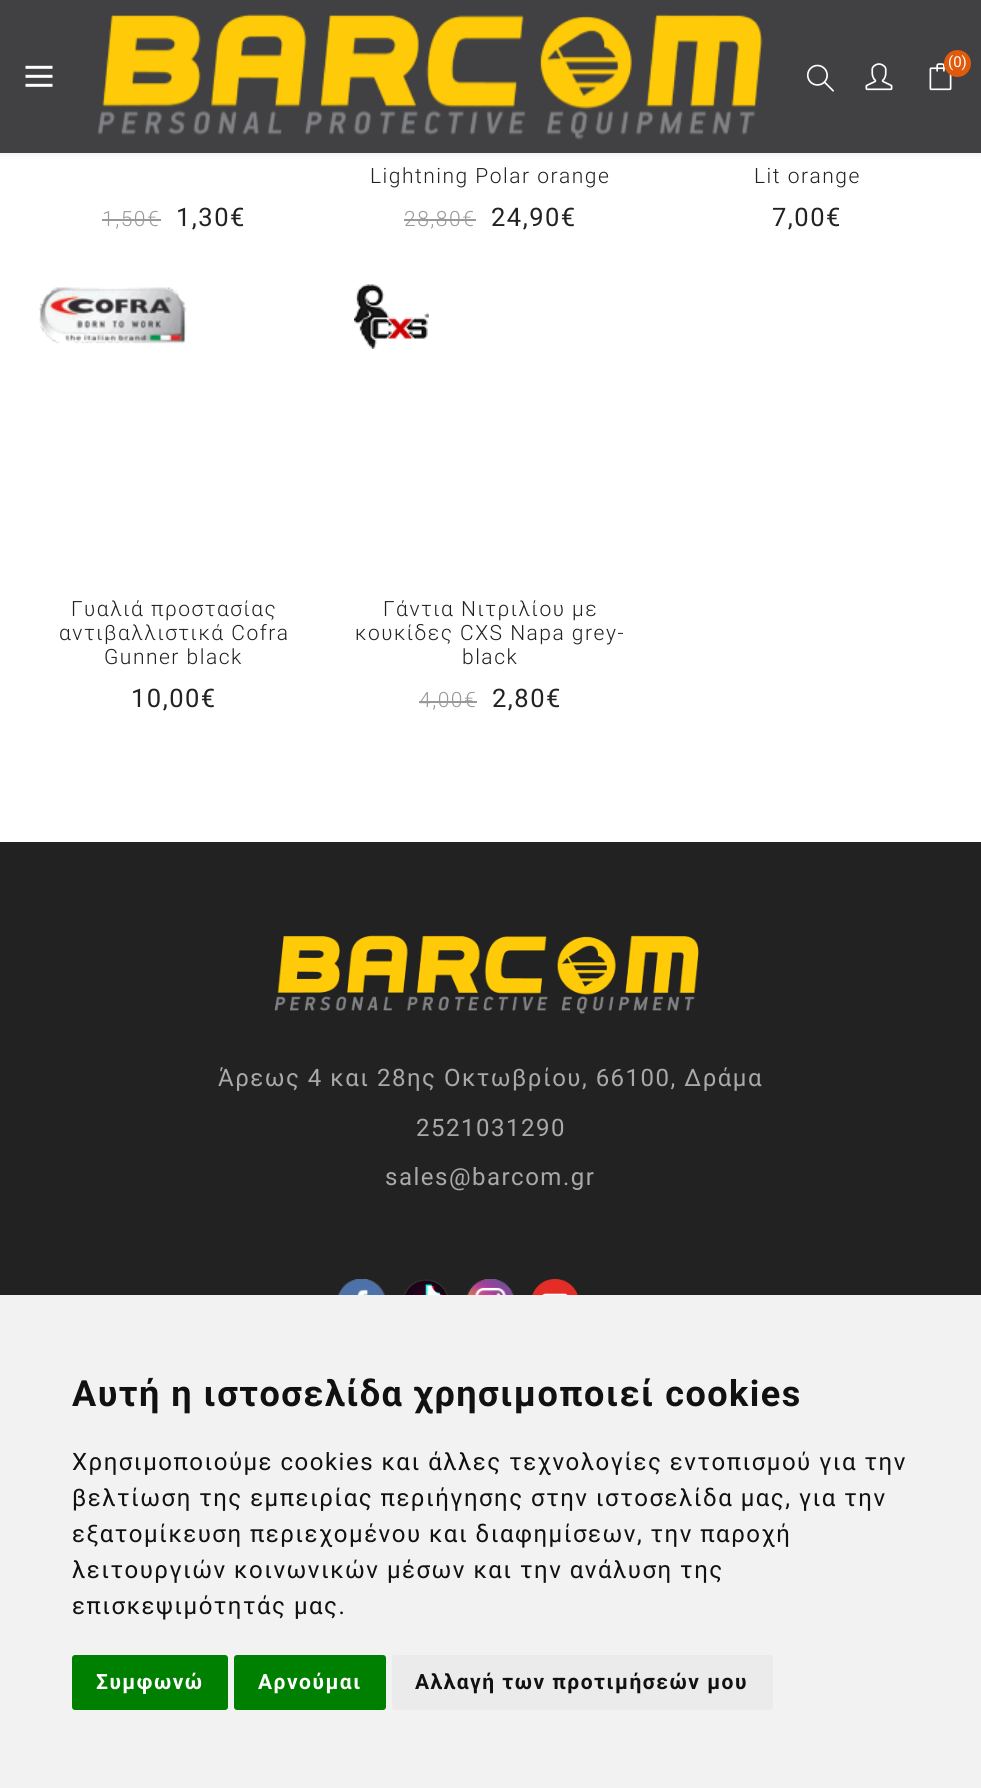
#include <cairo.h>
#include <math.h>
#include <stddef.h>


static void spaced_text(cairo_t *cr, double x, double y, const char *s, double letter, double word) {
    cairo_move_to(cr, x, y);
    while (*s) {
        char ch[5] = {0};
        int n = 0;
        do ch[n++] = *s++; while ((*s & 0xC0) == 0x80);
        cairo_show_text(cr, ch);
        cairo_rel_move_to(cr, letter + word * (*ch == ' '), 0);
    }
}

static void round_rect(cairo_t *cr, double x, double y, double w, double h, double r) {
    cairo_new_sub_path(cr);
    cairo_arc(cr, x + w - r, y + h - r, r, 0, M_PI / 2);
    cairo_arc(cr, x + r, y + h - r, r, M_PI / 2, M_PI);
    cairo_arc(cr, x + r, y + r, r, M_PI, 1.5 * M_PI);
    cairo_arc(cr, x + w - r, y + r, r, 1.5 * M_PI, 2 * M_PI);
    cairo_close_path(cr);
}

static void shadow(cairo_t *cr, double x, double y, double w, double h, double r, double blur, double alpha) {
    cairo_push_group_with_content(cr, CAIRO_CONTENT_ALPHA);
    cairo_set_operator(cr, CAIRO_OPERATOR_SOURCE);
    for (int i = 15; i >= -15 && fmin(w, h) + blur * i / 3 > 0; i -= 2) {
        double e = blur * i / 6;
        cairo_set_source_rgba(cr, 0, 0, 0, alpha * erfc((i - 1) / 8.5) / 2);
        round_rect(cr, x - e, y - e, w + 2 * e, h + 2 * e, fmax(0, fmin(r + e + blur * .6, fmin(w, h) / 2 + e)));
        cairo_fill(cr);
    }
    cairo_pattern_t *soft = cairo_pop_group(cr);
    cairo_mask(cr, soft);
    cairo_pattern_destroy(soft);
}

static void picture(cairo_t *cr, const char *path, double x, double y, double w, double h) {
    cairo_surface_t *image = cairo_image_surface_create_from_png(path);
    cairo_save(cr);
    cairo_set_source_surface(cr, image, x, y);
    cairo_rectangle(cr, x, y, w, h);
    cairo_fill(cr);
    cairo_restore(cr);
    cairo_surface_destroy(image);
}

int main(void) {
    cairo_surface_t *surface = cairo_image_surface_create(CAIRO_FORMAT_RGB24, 981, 1788);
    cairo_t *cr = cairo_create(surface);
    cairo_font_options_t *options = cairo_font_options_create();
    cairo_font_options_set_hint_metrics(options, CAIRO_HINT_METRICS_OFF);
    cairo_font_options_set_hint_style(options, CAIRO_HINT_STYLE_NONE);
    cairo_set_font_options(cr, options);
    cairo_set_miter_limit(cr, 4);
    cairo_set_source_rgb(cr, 1, 1, 1);
    cairo_paint(cr);
    cairo_set_source_rgb(cr, 0, 0, 0);
    shadow(cr, 0, 0, 981, 153, 0, 4, 0.1);
    cairo_set_source_rgb(cr, 0.255, 0.251, 0.259);
    cairo_rectangle(cr, 0, 0, 981, 153);
    cairo_fill(cr);
    picture(cr, "img1.png", 25, 65, 28, 22);
    picture(cr, "img2.png", 97, 14, 666, 126);
    picture(cr, "img3.png", 806, 64, 28, 28);
    picture(cr, "img4.png", 865, 63, 28, 28);
    picture(cr, "img5.png", 929, 63, 23, 28);
    cairo_set_source_rgb(cr, 0.882, 0.353, 0.043);
    cairo_arc(cr, 957.5, 63.5, 13.5, 0, 2 * M_PI);
    cairo_fill(cr);
    cairo_select_font_face(cr, "Roboto", CAIRO_FONT_SLANT_NORMAL, CAIRO_FONT_WEIGHT_NORMAL);
    cairo_set_font_size(cr, 15);
    cairo_set_source_rgb(cr, 1, 1, 1);
    cairo_move_to(cr, 948, 67);
    cairo_show_text(cr, "(0)");
    cairo_select_font_face(cr, "Roboto Light", CAIRO_FONT_SLANT_NORMAL, CAIRO_FONT_WEIGHT_NORMAL);
    cairo_set_font_size(cr, 21);
    cairo_set_source_rgb(cr, 0.6, 0.6, 0.6);
    spaced_text(cr, 102, 226, "1,50€", 1.5, 0);
    cairo_rectangle(cr, 102, 219, 59, 2);
    cairo_fill(cr);
    cairo_select_font_face(cr, "Roboto", CAIRO_FONT_SLANT_NORMAL, CAIRO_FONT_WEIGHT_NORMAL);
    cairo_set_font_size(cr, 25.5);
    cairo_set_source_rgb(cr, 0.133, 0.133, 0.133);
    spaced_text(cr, 176, 226, "1,30€", 1.5, 0);
    cairo_select_font_face(cr, "Roboto Light", CAIRO_FONT_SLANT_NORMAL, CAIRO_FONT_WEIGHT_NORMAL);
    cairo_set_font_size(cr, 21);
    spaced_text(cr, 370, 183, "Lightning Polar orange", 1.5, 0);
    cairo_set_source_rgb(cr, 0.6, 0.6, 0.6);
    spaced_text(cr, 404, 226, "28,80€", 1.5, 0);
    cairo_rectangle(cr, 404, 219, 72, 2);
    cairo_fill(cr);
    cairo_select_font_face(cr, "Roboto", CAIRO_FONT_SLANT_NORMAL, CAIRO_FONT_WEIGHT_NORMAL);
    cairo_set_font_size(cr, 25.5);
    cairo_set_source_rgb(cr, 0.133, 0.133, 0.133);
    spaced_text(cr, 491, 226, "24,90€", 1.5, 0);
    cairo_select_font_face(cr, "Roboto Light", CAIRO_FONT_SLANT_NORMAL, CAIRO_FONT_WEIGHT_NORMAL);
    cairo_set_font_size(cr, 21);
    spaced_text(cr, 754, 183, "Lit orange", 1.5, 0);
    cairo_select_font_face(cr, "Roboto", CAIRO_FONT_SLANT_NORMAL, CAIRO_FONT_WEIGHT_NORMAL);
    cairo_set_font_size(cr, 25.5);
    spaced_text(cr, 772, 226, "7,00€", 1.5, 0);
    picture(cr, "img6.png", 39, 287, 148, 57);
    cairo_select_font_face(cr, "Roboto Light", CAIRO_FONT_SLANT_NORMAL, CAIRO_FONT_WEIGHT_NORMAL);
    cairo_set_font_size(cr, 21);
    spaced_text(cr, 71, 616, "Γυαλιά προστασίας", 1.5, 0);
    spaced_text(cr, 59, 640, "αντιβαλλιστικά Cofra", 1.5, 0);
    spaced_text(cr, 104, 664, "Gunner black", 1.5, 0);
    cairo_select_font_face(cr, "Roboto", CAIRO_FONT_SLANT_NORMAL, CAIRO_FONT_WEIGHT_NORMAL);
    cairo_set_font_size(cr, 25.5);
    spaced_text(cr, 131, 707, "10,00€", 1.5, 0);
    picture(cr, "img7.png", 354, 284, 75, 65);
    cairo_select_font_face(cr, "Roboto Light", CAIRO_FONT_SLANT_NORMAL, CAIRO_FONT_WEIGHT_NORMAL);
    cairo_set_font_size(cr, 21);
    spaced_text(cr, 383, 616, "Γάντια Νιτριλίου με", 1.5, 0);
    spaced_text(cr, 355, 640, "κουκίδες CXS Napa grey-", 1.5, 0);
    spaced_text(cr, 462, 664, "black", 1.5, 0);
    cairo_set_source_rgb(cr, 0.6, 0.6, 0.6);
    spaced_text(cr, 419, 707, "4,00€", 1.5, 0);
    cairo_rectangle(cr, 419, 701, 58, 2);
    cairo_fill(cr);
    cairo_select_font_face(cr, "Roboto", CAIRO_FONT_SLANT_NORMAL, CAIRO_FONT_WEIGHT_NORMAL);
    cairo_set_font_size(cr, 25.5);
    cairo_set_source_rgb(cr, 0.133, 0.133, 0.133);
    spaced_text(cr, 492, 707, "2,80€", 1.5, 0);
    cairo_rectangle(cr, 0, 842, 981, 453);
    cairo_fill(cr);
    picture(cr, "img8.png", 274, 935, 425, 79);
    cairo_set_font_size(cr, 24);
    cairo_set_source_rgb(cr, 0.663, 0.663, 0.663);
    spaced_text(cr, 218, 1086, "Άρεως 4 και 28ης Οκτωβρίου, 66100, Δράμα", 1.5, 0);
    spaced_text(cr, 416, 1136, "2521031290", 1.5, 0);
    spaced_text(cr, 385, 1185, "sales@barcom.gr", 1.5, 0);
    picture(cr, "img9.png", 338, 1279, 47, 16);
    picture(cr, "img10.png", 404, 1279, 44, 16);
    picture(cr, "img11.png", 467, 1279, 47, 16);
    picture(cr, "img12.png", 532, 1279, 46, 16);
    cairo_set_source_rgb(cr, 0.949, 0.949, 0.949);
    cairo_rectangle(cr, 0, 1295, 981, 493);
    cairo_fill(cr);
    cairo_select_font_face(cr, "Roboto", CAIRO_FONT_SLANT_NORMAL, CAIRO_FONT_WEIGHT_BOLD);
    cairo_set_font_size(cr, 36);
    cairo_set_source_rgb(cr, 0.067, 0.067, 0.067);
    spaced_text(cr, 72, 1406, "Αυτή η ιστοσελίδα χρησιμοποιεί cookies", 1.5, 0);
    cairo_select_font_face(cr, "Roboto", CAIRO_FONT_SLANT_NORMAL, CAIRO_FONT_WEIGHT_NORMAL);
    cairo_set_font_size(cr, 24);
    spaced_text(cr, 72, 1470, "Χρησιμοποιούμε cookies και άλλες τεχνολογίες εντοπισμού για την", 1.5, 0);
    spaced_text(cr, 72, 1506, "βελτίωση της εμπειρίας περιήγησης στην ιστοσελίδα μας, για την", 1.5, 0);
    spaced_text(cr, 72, 1542, "εξατομίκευση περιεχομένου και διαφημίσεων, την παροχή", 1.5, 0);
    spaced_text(cr, 72, 1578, "λειτουργιών κοινωνικών μέσων και την ανάλυση της", 1.5, 0);
    spaced_text(cr, 72, 1614, "επισκεψιμότητάς μας.", 1.5, 0);
    cairo_set_source_rgb(cr, 0, 0.502, 0);
    round_rect(cr, 72, 1655, 156, 55, 3);
    cairo_fill(cr);
    cairo_select_font_face(cr, "Roboto", CAIRO_FONT_SLANT_NORMAL, CAIRO_FONT_WEIGHT_BOLD);
    cairo_set_font_size(cr, 21);
    cairo_set_source_rgb(cr, 1, 1, 1);
    spaced_text(cr, 96, 1689, "Συμφωνώ", 1.5, 0);
    cairo_set_source_rgb(cr, 0, 0.502, 0);
    round_rect(cr, 234, 1655, 152, 55, 3);
    cairo_fill(cr);
    cairo_set_source_rgb(cr, 1, 1, 1);
    spaced_text(cr, 258, 1689, "Αρνούμαι", 1.5, 0);
    cairo_set_source_rgb(cr, 0.918, 0.918, 0.918);
    round_rect(cr, 392, 1655, 381, 55, 3);
    cairo_fill(cr);
    cairo_set_source_rgb(cr, 0.067, 0.067, 0.067);
    spaced_text(cr, 415, 1689, "Αλλαγή των προτιμήσεών μου", 1.5, 0);
    cairo_surface_write_to_png(surface, "page.png");
    cairo_font_options_destroy(options);
    cairo_destroy(cr);
    cairo_surface_destroy(surface);
    return 0;
}
